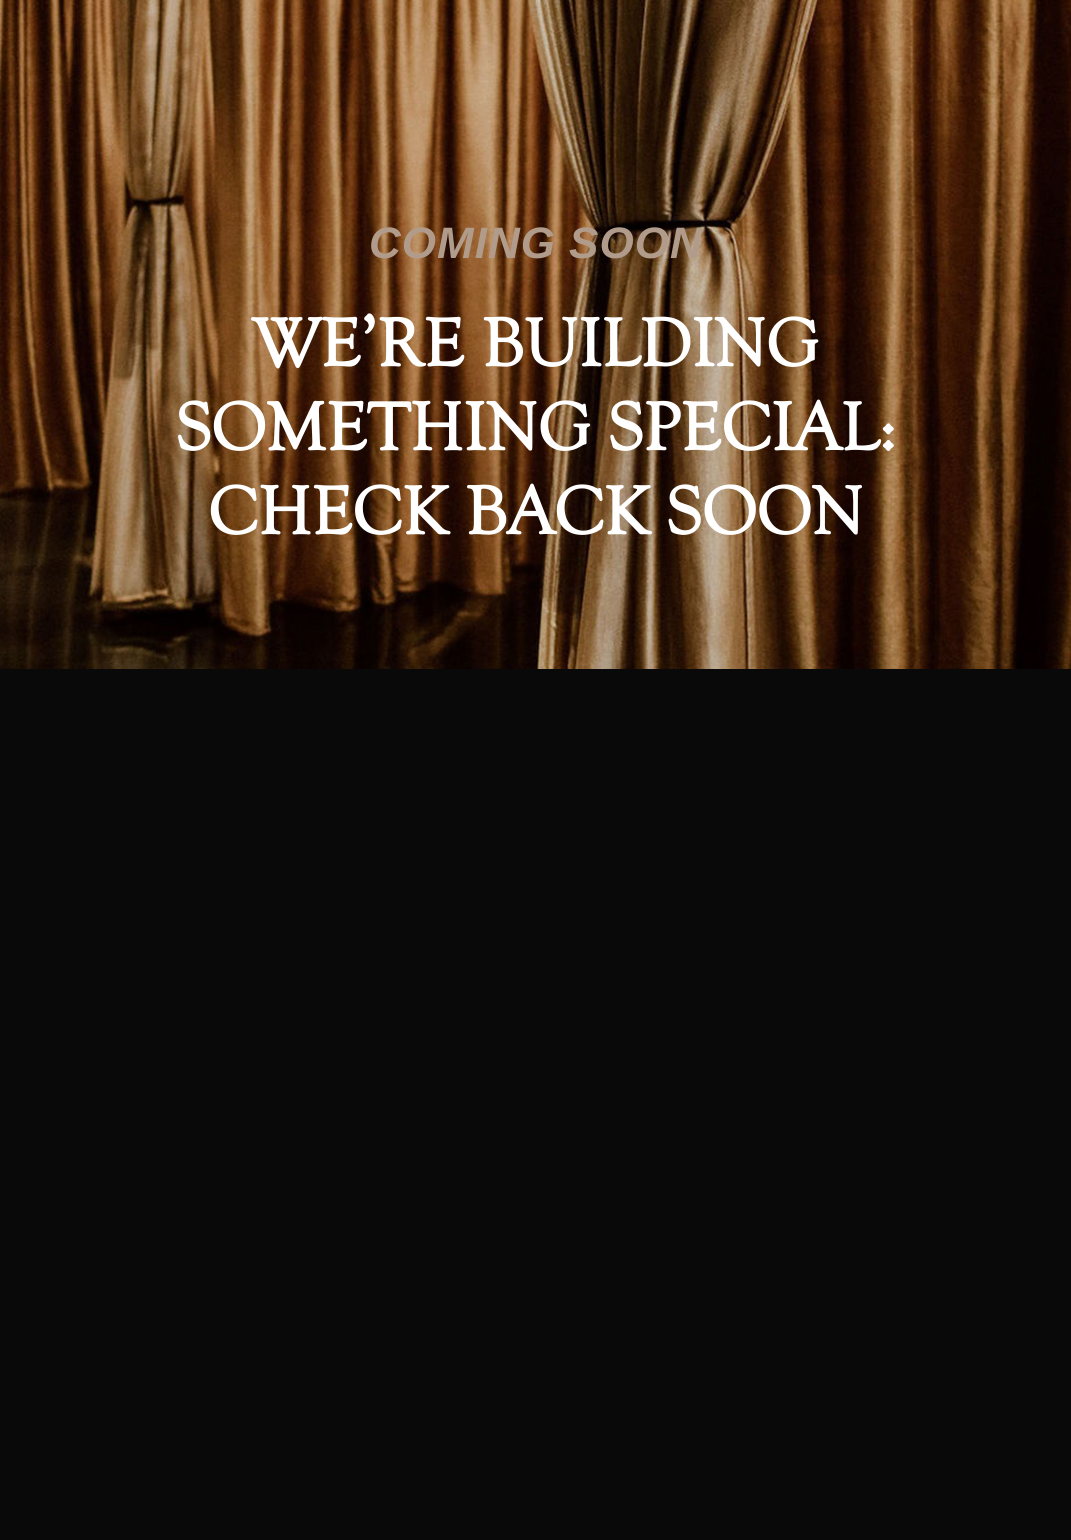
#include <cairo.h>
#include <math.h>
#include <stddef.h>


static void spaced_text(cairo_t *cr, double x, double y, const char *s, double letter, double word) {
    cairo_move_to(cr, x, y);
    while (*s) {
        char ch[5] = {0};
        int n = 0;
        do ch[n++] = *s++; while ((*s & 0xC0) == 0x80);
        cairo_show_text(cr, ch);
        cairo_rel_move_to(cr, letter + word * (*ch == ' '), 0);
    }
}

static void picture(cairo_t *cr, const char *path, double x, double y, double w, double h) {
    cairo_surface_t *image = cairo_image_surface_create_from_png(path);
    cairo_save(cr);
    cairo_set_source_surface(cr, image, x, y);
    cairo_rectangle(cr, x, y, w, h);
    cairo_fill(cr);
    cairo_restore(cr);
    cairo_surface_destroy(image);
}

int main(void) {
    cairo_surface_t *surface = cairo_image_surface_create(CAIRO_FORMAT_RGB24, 1071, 1540);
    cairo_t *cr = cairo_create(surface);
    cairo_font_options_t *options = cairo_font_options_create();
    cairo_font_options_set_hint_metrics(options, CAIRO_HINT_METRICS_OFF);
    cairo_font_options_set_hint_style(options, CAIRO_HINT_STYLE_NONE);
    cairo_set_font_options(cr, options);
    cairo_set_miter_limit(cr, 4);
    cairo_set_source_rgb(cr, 0.039, 0.039, 0.039);
    cairo_paint(cr);
    picture(cr, "img1.png", 0, 0, 1071, 669);
    cairo_select_font_face(cr, "Liberation Sans", CAIRO_FONT_SLANT_ITALIC, CAIRO_FONT_WEIGHT_BOLD);
    cairo_set_font_size(cr, 44);
    cairo_set_source_rgb(cr, 0.694, 0.612, 0.545);
    spaced_text(cr, 369, 258, "COMING SOON", 1, 0);
    cairo_select_font_face(cr, "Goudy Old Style", CAIRO_FONT_SLANT_NORMAL, CAIRO_FONT_WEIGHT_BOLD);
    cairo_set_font_size(cr, 70);
    cairo_set_source_rgb(cr, 1, 1, 1);
    cairo_move_to(cr, 252, 366);
    cairo_show_text(cr, "WE’RE BUILDING");
    cairo_move_to(cr, 176, 450);
    cairo_show_text(cr, "SOMETHING SPECIAL:");
    cairo_move_to(cr, 208, 534);
    cairo_show_text(cr, "CHECK BACK SOON");
    cairo_surface_write_to_png(surface, "page.png");
    cairo_font_options_destroy(options);
    cairo_destroy(cr);
    cairo_surface_destroy(surface);
    return 0;
}
